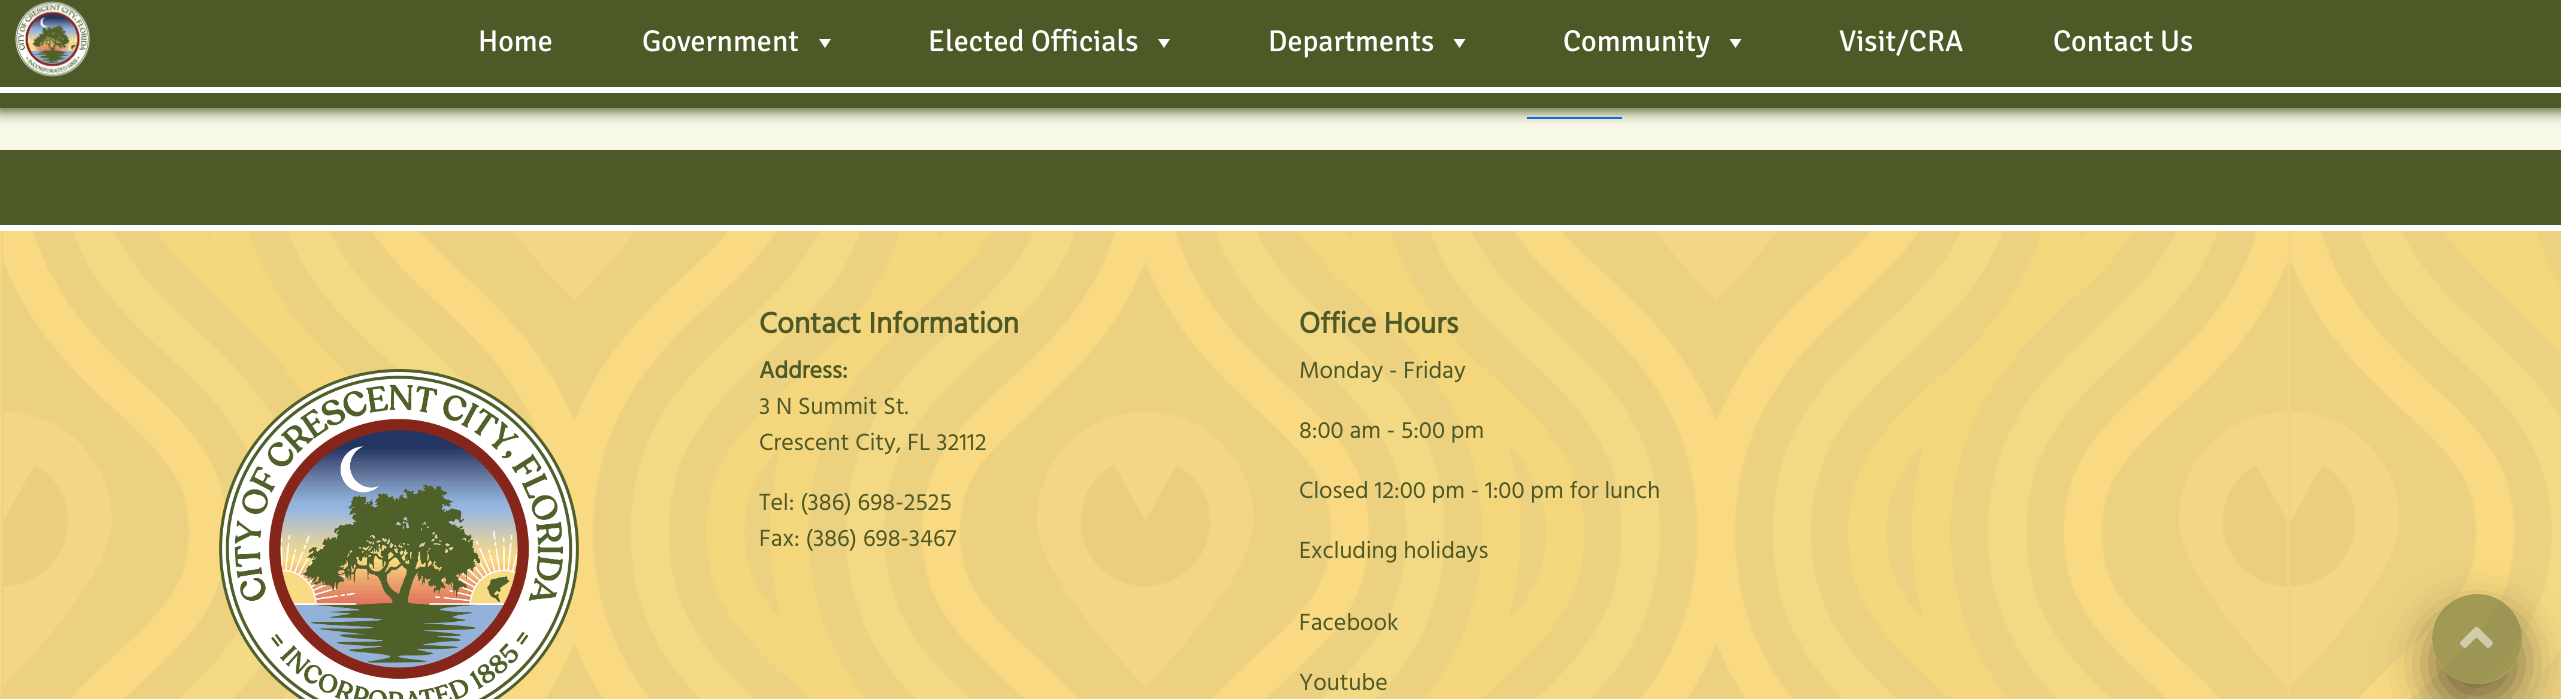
#include <cairo.h>
#include <math.h>
#include <stddef.h>


static void round_rect(cairo_t *cr, double x, double y, double w, double h, double r) {
    cairo_new_sub_path(cr);
    cairo_arc(cr, x + w - r, y + h - r, r, 0, M_PI / 2);
    cairo_arc(cr, x + r, y + h - r, r, M_PI / 2, M_PI);
    cairo_arc(cr, x + r, y + r, r, M_PI, 1.5 * M_PI);
    cairo_arc(cr, x + w - r, y + r, r, 1.5 * M_PI, 2 * M_PI);
    cairo_close_path(cr);
}

static void shadow(cairo_t *cr, double x, double y, double w, double h, double r, double blur, double alpha) {
    cairo_push_group_with_content(cr, CAIRO_CONTENT_ALPHA);
    cairo_set_operator(cr, CAIRO_OPERATOR_SOURCE);
    for (int i = 15; i >= -15 && fmin(w, h) + blur * i / 3 > 0; i -= 2) {
        double e = blur * i / 6;
        cairo_set_source_rgba(cr, 0, 0, 0, alpha * erfc((i - 1) / 8.5) / 2);
        round_rect(cr, x - e, y - e, w + 2 * e, h + 2 * e, fmax(0, fmin(r + e + blur * .6, fmin(w, h) / 2 + e)));
        cairo_fill(cr);
    }
    cairo_pattern_t *soft = cairo_pop_group(cr);
    cairo_mask(cr, soft);
    cairo_pattern_destroy(soft);
}

static void picture(cairo_t *cr, const char *path, double x, double y, double w, double h) {
    cairo_surface_t *image = cairo_image_surface_create_from_png(path);
    cairo_save(cr);
    cairo_set_source_surface(cr, image, x, y);
    cairo_rectangle(cr, x, y, w, h);
    cairo_fill(cr);
    cairo_restore(cr);
    cairo_surface_destroy(image);
}

int main(void) {
    cairo_surface_t *surface = cairo_image_surface_create(CAIRO_FORMAT_RGB24, 2561, 699);
    cairo_t *cr = cairo_create(surface);
    cairo_font_options_t *options = cairo_font_options_create();
    cairo_font_options_set_hint_metrics(options, CAIRO_HINT_METRICS_OFF);
    cairo_font_options_set_hint_style(options, CAIRO_HINT_STYLE_NONE);
    cairo_set_font_options(cr, options);
    cairo_set_miter_limit(cr, 4);
    cairo_set_source_rgb(cr, 0.976, 0.976, 0.91);
    cairo_paint(cr);
    cairo_set_source_rgb(cr, 0.051, 0.431, 0.992);
    cairo_rectangle(cr, 1527, 117, 95, 2);
    cairo_fill(cr);
    cairo_set_source_rgb(cr, 0.302, 0.353, 0.157);
    shadow(cr, -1, 0, 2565, 111, 0, 7, 1);
    cairo_set_source_rgb(cr, 0.302, 0.353, 0.157);
    cairo_rectangle(cr, 0, 0, 2561, 108);
    cairo_fill(cr);
    picture(cr, "img1.png", 15, 1, 75, 76);
    cairo_select_font_face(cr, "Signika", CAIRO_FONT_SLANT_NORMAL, CAIRO_FONT_WEIGHT_NORMAL);
    cairo_set_font_size(cr, 30);
    cairo_set_source_rgb(cr, 1, 1, 1);
    cairo_move_to(cr, 478, 51);
    cairo_show_text(cr, "Home");
    cairo_move_to(cr, 642, 51);
    cairo_show_text(cr, "Government");
    cairo_new_path(cr);
    cairo_move_to(cr, 831, 39);
    cairo_line_to(cr, 825, 48);
    cairo_line_to(cr, 819, 39);
    cairo_close_path(cr);
    cairo_fill(cr);
    cairo_move_to(cr, 928, 51);
    cairo_show_text(cr, "Elected Officials");
    cairo_new_path(cr);
    cairo_move_to(cr, 1170, 39);
    cairo_line_to(cr, 1164, 48);
    cairo_line_to(cr, 1158, 39);
    cairo_close_path(cr);
    cairo_fill(cr);
    cairo_move_to(cr, 1268, 51);
    cairo_show_text(cr, "Departments");
    cairo_new_path(cr);
    cairo_move_to(cr, 1465.5, 39);
    cairo_line_to(cr, 1459.5, 48);
    cairo_line_to(cr, 1453.5, 39);
    cairo_close_path(cr);
    cairo_fill(cr);
    cairo_move_to(cr, 1563, 51);
    cairo_show_text(cr, "Community");
    cairo_new_path(cr);
    cairo_move_to(cr, 1741.5, 39);
    cairo_line_to(cr, 1735.5, 48);
    cairo_line_to(cr, 1729.5, 39);
    cairo_close_path(cr);
    cairo_fill(cr);
    cairo_move_to(cr, 1839, 51);
    cairo_show_text(cr, "Visit/CRA");
    cairo_move_to(cr, 2053, 51);
    cairo_show_text(cr, "Contact Us");
    cairo_rectangle(cr, 0, 87, 2561, 6);
    cairo_fill(cr);
    picture(cr, "img2.png", 0, 231, 2561, 468);
    cairo_set_source_rgb(cr, 0.302, 0.353, 0.157);
    cairo_rectangle(cr, 0, 150, 2561, 75);
    cairo_fill(cr);
    cairo_set_source_rgb(cr, 1, 1, 1);
    cairo_rectangle(cr, 0, 225, 2561, 6);
    cairo_fill(cr);
    picture(cr, "img3.png", 219, 369, 360, 330);
    cairo_select_font_face(cr, "Hind Vadodara", CAIRO_FONT_SLANT_NORMAL, CAIRO_FONT_WEIGHT_BOLD);
    cairo_set_source_rgb(cr, 0.302, 0.353, 0.157);
    cairo_move_to(cr, 759, 333);
    cairo_show_text(cr, "Contact Information");
    cairo_set_font_size(cr, 24);
    cairo_move_to(cr, 759, 378);
    cairo_show_text(cr, "Address:");
    cairo_select_font_face(cr, "Hind Vadodara", CAIRO_FONT_SLANT_NORMAL, CAIRO_FONT_WEIGHT_NORMAL);
    cairo_move_to(cr, 759, 414);
    cairo_show_text(cr, "3 N Summit St.");
    cairo_move_to(cr, 759, 450);
    cairo_show_text(cr, "Crescent City, FL 32112");
    cairo_move_to(cr, 759, 510);
    cairo_show_text(cr, "Tel: (386) 698-2525");
    cairo_move_to(cr, 759, 546);
    cairo_show_text(cr, "Fax: (386) 698-3467");
    cairo_select_font_face(cr, "Hind Vadodara", CAIRO_FONT_SLANT_NORMAL, CAIRO_FONT_WEIGHT_BOLD);
    cairo_set_font_size(cr, 30);
    cairo_move_to(cr, 1299, 333);
    cairo_show_text(cr, "Office Hours");
    cairo_select_font_face(cr, "Hind Vadodara", CAIRO_FONT_SLANT_NORMAL, CAIRO_FONT_WEIGHT_NORMAL);
    cairo_set_font_size(cr, 24);
    cairo_move_to(cr, 1299, 378);
    cairo_show_text(cr, "Monday - Friday");
    cairo_move_to(cr, 1299, 438);
    cairo_show_text(cr, "8:00 am - 5:00 pm");
    cairo_move_to(cr, 1299, 498);
    cairo_show_text(cr, "Closed 12:00 pm - 1:00 pm for lunch");
    cairo_move_to(cr, 1299, 558);
    cairo_show_text(cr, "Excluding holidays");
    cairo_move_to(cr, 1299, 630);
    cairo_show_text(cr, "Facebook");
    cairo_move_to(cr, 1299, 690);
    cairo_show_text(cr, "Youtube");
    cairo_save(cr);
    cairo_set_fill_rule(cr, CAIRO_FILL_RULE_EVEN_ODD);
    cairo_new_path(cr);
    cairo_move_to(cr, 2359, 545);
    cairo_line_to(cr, 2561, 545);
    cairo_line_to(cr, 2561, 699);
    cairo_line_to(cr, 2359, 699);
    cairo_close_path(cr);
    cairo_move_to(cr, 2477, 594);
    cairo_curve_to(cr, 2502, 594, 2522, 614, 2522, 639);
    cairo_curve_to(cr, 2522, 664, 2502, 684, 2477, 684);
    cairo_curve_to(cr, 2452, 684, 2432, 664, 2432, 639);
    cairo_curve_to(cr, 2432, 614, 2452, 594, 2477, 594);
    cairo_close_path(cr);
    cairo_clip(cr);
    cairo_set_source_rgb(cr, 0, 0, 0);
    shadow(cr, 2432, 618, 90, 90, 45, 24, 0.5);
    cairo_restore(cr);
    cairo_set_source_rgba(cr, 0.302, 0.353, 0.157, 0.5);
    cairo_arc(cr, 2477, 639, 45, 0, 2 * M_PI);
    cairo_fill(cr);
    picture(cr, "img4.png", 2460, 626, 33, 22);
    cairo_surface_write_to_png(surface, "page.png");
    cairo_font_options_destroy(options);
    cairo_destroy(cr);
    cairo_surface_destroy(surface);
    return 0;
}
